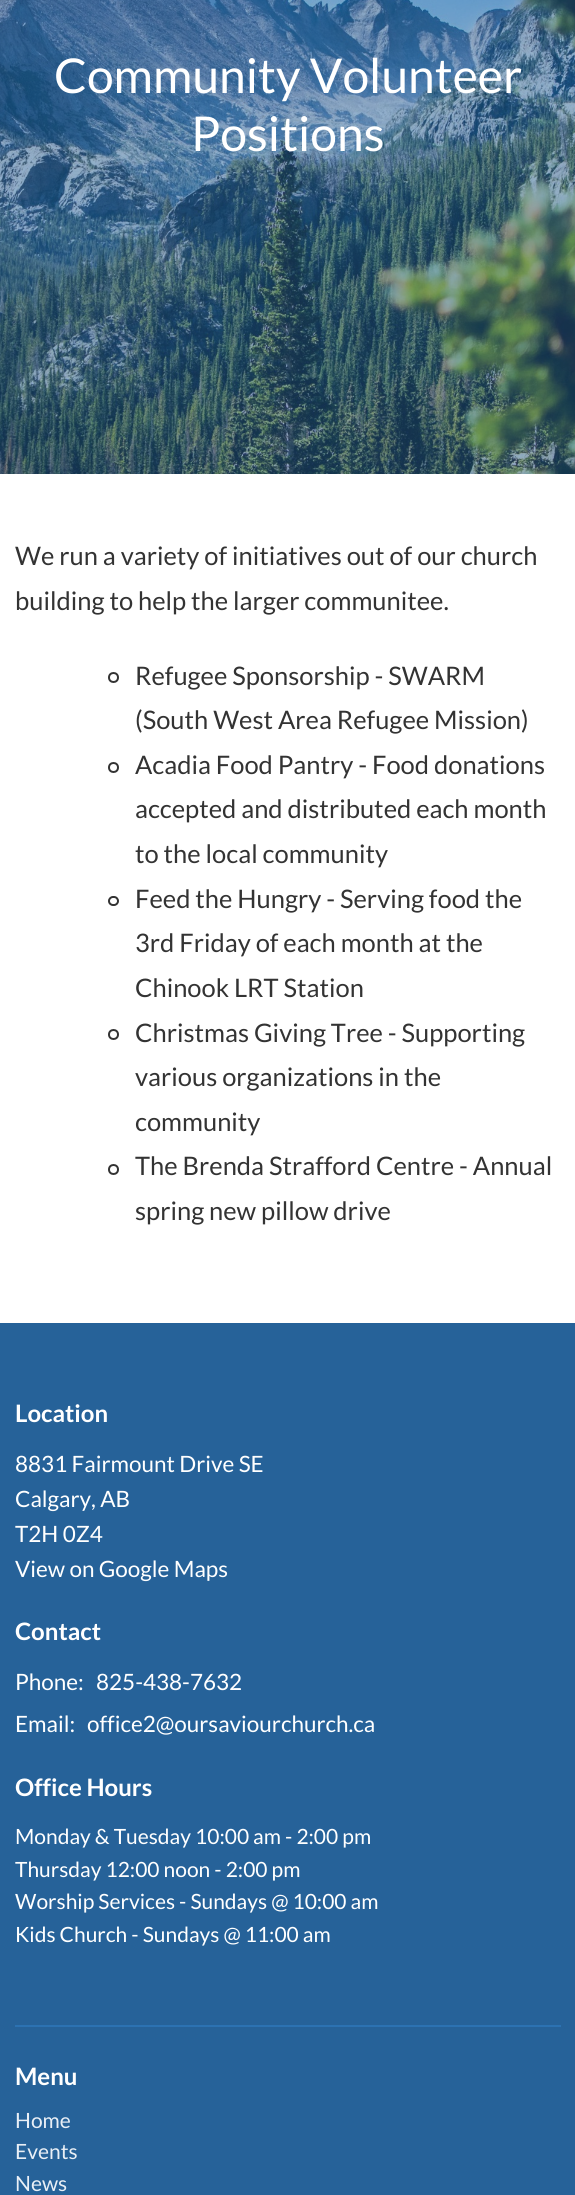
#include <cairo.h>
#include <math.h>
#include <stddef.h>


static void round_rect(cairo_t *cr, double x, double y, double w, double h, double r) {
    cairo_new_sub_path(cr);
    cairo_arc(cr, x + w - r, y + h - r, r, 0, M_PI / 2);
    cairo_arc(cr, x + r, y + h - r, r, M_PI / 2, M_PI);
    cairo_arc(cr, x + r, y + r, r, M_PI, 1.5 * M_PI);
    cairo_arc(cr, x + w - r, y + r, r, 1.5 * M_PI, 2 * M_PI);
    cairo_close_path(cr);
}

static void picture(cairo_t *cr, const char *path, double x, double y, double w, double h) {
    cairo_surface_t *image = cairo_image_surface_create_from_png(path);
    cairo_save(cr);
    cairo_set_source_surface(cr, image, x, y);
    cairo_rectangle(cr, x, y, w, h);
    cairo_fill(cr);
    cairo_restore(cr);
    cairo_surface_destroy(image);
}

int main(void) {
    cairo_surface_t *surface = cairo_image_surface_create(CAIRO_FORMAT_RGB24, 575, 2195);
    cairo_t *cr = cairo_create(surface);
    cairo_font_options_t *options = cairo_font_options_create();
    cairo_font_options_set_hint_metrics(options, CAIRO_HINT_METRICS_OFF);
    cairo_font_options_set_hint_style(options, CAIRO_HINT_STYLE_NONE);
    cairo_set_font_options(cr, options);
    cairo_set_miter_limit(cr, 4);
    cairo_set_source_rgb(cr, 1, 1, 1);
    cairo_paint(cr);
    picture(cr, "img1.png", 0, 0, 575, 474);
    cairo_select_font_face(cr, "Lato", CAIRO_FONT_SLANT_NORMAL, CAIRO_FONT_WEIGHT_NORMAL);
    cairo_set_font_size(cr, 48);
    cairo_set_source_rgb(cr, 1, 1, 1);
    cairo_move_to(cr, 54, 93);
    cairo_show_text(cr, "Community Volunteer");
    cairo_move_to(cr, 191, 151);
    cairo_show_text(cr, "Positions");
    cairo_set_font_size(cr, 25.5);
    cairo_set_source_rgb(cr, 0.2, 0.2, 0.2);
    cairo_move_to(cr, 15, 565);
    cairo_show_text(cr, "We run a variety of initiatives out of our church");
    cairo_move_to(cr, 15, 610);
    cairo_show_text(cr, "building to help the larger communitee.");
    cairo_new_path(cr);
    cairo_arc(cr, 113.5, 677.5, 4.5, 0, 2 * M_PI);
    cairo_stroke(cr);
    cairo_move_to(cr, 135, 685);
    cairo_show_text(cr, "Refugee Sponsorship - SWARM");
    cairo_move_to(cr, 135, 729);
    cairo_show_text(cr, "(South West Area Refugee Mission)");
    cairo_new_path(cr);
    cairo_arc(cr, 113.5, 767.5, 4.5, 0, 2 * M_PI);
    cairo_stroke(cr);
    cairo_move_to(cr, 135, 774);
    cairo_show_text(cr, "Acadia Food Pantry - Food donations");
    cairo_move_to(cr, 135, 818);
    cairo_show_text(cr, "accepted and distributed each month");
    cairo_move_to(cr, 135, 863);
    cairo_show_text(cr, "to the local community");
    round_rect(cr, 109, 897, 9, 8, 4);
    cairo_stroke(cr);
    cairo_move_to(cr, 135, 908);
    cairo_show_text(cr, "Feed the Hungry - Serving food the");
    cairo_move_to(cr, 135, 952);
    cairo_show_text(cr, "3rd Friday of each month at the");
    cairo_move_to(cr, 135, 997);
    cairo_show_text(cr, "Chinook LRT Station");
    cairo_new_path(cr);
    cairo_arc(cr, 113.5, 1034.5, 4.5, 0, 2 * M_PI);
    cairo_stroke(cr);
    cairo_move_to(cr, 135, 1042);
    cairo_show_text(cr, "Christmas Giving Tree - Supporting");
    cairo_move_to(cr, 135, 1086);
    cairo_show_text(cr, "various organizations in the");
    cairo_move_to(cr, 135, 1131);
    cairo_show_text(cr, "community");
    cairo_new_path(cr);
    cairo_arc(cr, 113.5, 1169.5, 4.5, 0, 2 * M_PI);
    cairo_stroke(cr);
    cairo_move_to(cr, 135, 1175);
    cairo_show_text(cr, "The Brenda Strafford Centre - Annual");
    cairo_move_to(cr, 135, 1220);
    cairo_show_text(cr, "spring new pillow drive");
    cairo_set_source_rgb(cr, 0.149, 0.384, 0.6);
    cairo_rectangle(cr, 0, 1323, 575, 872);
    cairo_fill(cr);
    cairo_select_font_face(cr, "Lato", CAIRO_FONT_SLANT_NORMAL, CAIRO_FONT_WEIGHT_BOLD);
    cairo_set_font_size(cr, 24);
    cairo_set_source_rgb(cr, 1, 1, 1);
    cairo_move_to(cr, 15, 1422);
    cairo_show_text(cr, "Location");
    cairo_select_font_face(cr, "Lato", CAIRO_FONT_SLANT_NORMAL, CAIRO_FONT_WEIGHT_NORMAL);
    cairo_set_font_size(cr, 22.5);
    cairo_move_to(cr, 15, 1472);
    cairo_show_text(cr, "8831 Fairmount Drive SE");
    cairo_move_to(cr, 15, 1507);
    cairo_show_text(cr, "Calgary, AB");
    cairo_move_to(cr, 15, 1542);
    cairo_show_text(cr, "T2H 0Z4");
    cairo_move_to(cr, 15, 1577);
    cairo_show_text(cr, "View on Google Maps");
    cairo_select_font_face(cr, "Lato", CAIRO_FONT_SLANT_NORMAL, CAIRO_FONT_WEIGHT_BOLD);
    cairo_set_font_size(cr, 24);
    cairo_move_to(cr, 15, 1640);
    cairo_show_text(cr, "Contact");
    cairo_select_font_face(cr, "Lato", CAIRO_FONT_SLANT_NORMAL, CAIRO_FONT_WEIGHT_NORMAL);
    cairo_set_font_size(cr, 22.5);
    cairo_move_to(cr, 15, 1690);
    cairo_show_text(cr, "Phone:");
    cairo_move_to(cr, 96, 1690);
    cairo_show_text(cr, "825-438-7632");
    cairo_move_to(cr, 15, 1732);
    cairo_show_text(cr, "Email:");
    cairo_move_to(cr, 87, 1732);
    cairo_show_text(cr, "office2@oursaviourchurch.ca");
    cairo_select_font_face(cr, "Lato", CAIRO_FONT_SLANT_NORMAL, CAIRO_FONT_WEIGHT_BOLD);
    cairo_set_font_size(cr, 24);
    cairo_move_to(cr, 15, 1796);
    cairo_show_text(cr, "Office Hours");
    cairo_select_font_face(cr, "Lato", CAIRO_FONT_SLANT_NORMAL, CAIRO_FONT_WEIGHT_NORMAL);
    cairo_set_font_size(cr, 21);
    cairo_move_to(cr, 15, 1844);
    cairo_show_text(cr, "Monday & Tuesday 10:00 am - 2:00 pm");
    cairo_move_to(cr, 15, 1877);
    cairo_show_text(cr, "Thursday 12:00 noon - 2:00 pm");
    cairo_move_to(cr, 15, 1909);
    cairo_show_text(cr, "Worship Services - Sundays @ 10:00 am");
    cairo_move_to(cr, 15, 1942);
    cairo_show_text(cr, "Kids Church - Sundays @ 11:00 am");
    cairo_set_source_rgb(cr, 0.173, 0.447, 0.698);
    cairo_rectangle(cr, 15, 2025, 546, 2);
    cairo_fill(cr);
    cairo_select_font_face(cr, "Lato", CAIRO_FONT_SLANT_NORMAL, CAIRO_FONT_WEIGHT_BOLD);
    cairo_set_font_size(cr, 24);
    cairo_set_source_rgb(cr, 1, 1, 1);
    cairo_move_to(cr, 15, 2085);
    cairo_show_text(cr, "Menu");
    cairo_select_font_face(cr, "Lato", CAIRO_FONT_SLANT_NORMAL, CAIRO_FONT_WEIGHT_NORMAL);
    cairo_set_font_size(cr, 21);
    cairo_set_source_rgb(cr, 0.914, 0.937, 0.961);
    cairo_move_to(cr, 15, 2128);
    cairo_show_text(cr, "Home");
    cairo_move_to(cr, 15, 2159);
    cairo_show_text(cr, "Events");
    cairo_move_to(cr, 15, 2191);
    cairo_show_text(cr, "News");
    cairo_surface_write_to_png(surface, "page.png");
    cairo_font_options_destroy(options);
    cairo_destroy(cr);
    cairo_surface_destroy(surface);
    return 0;
}
